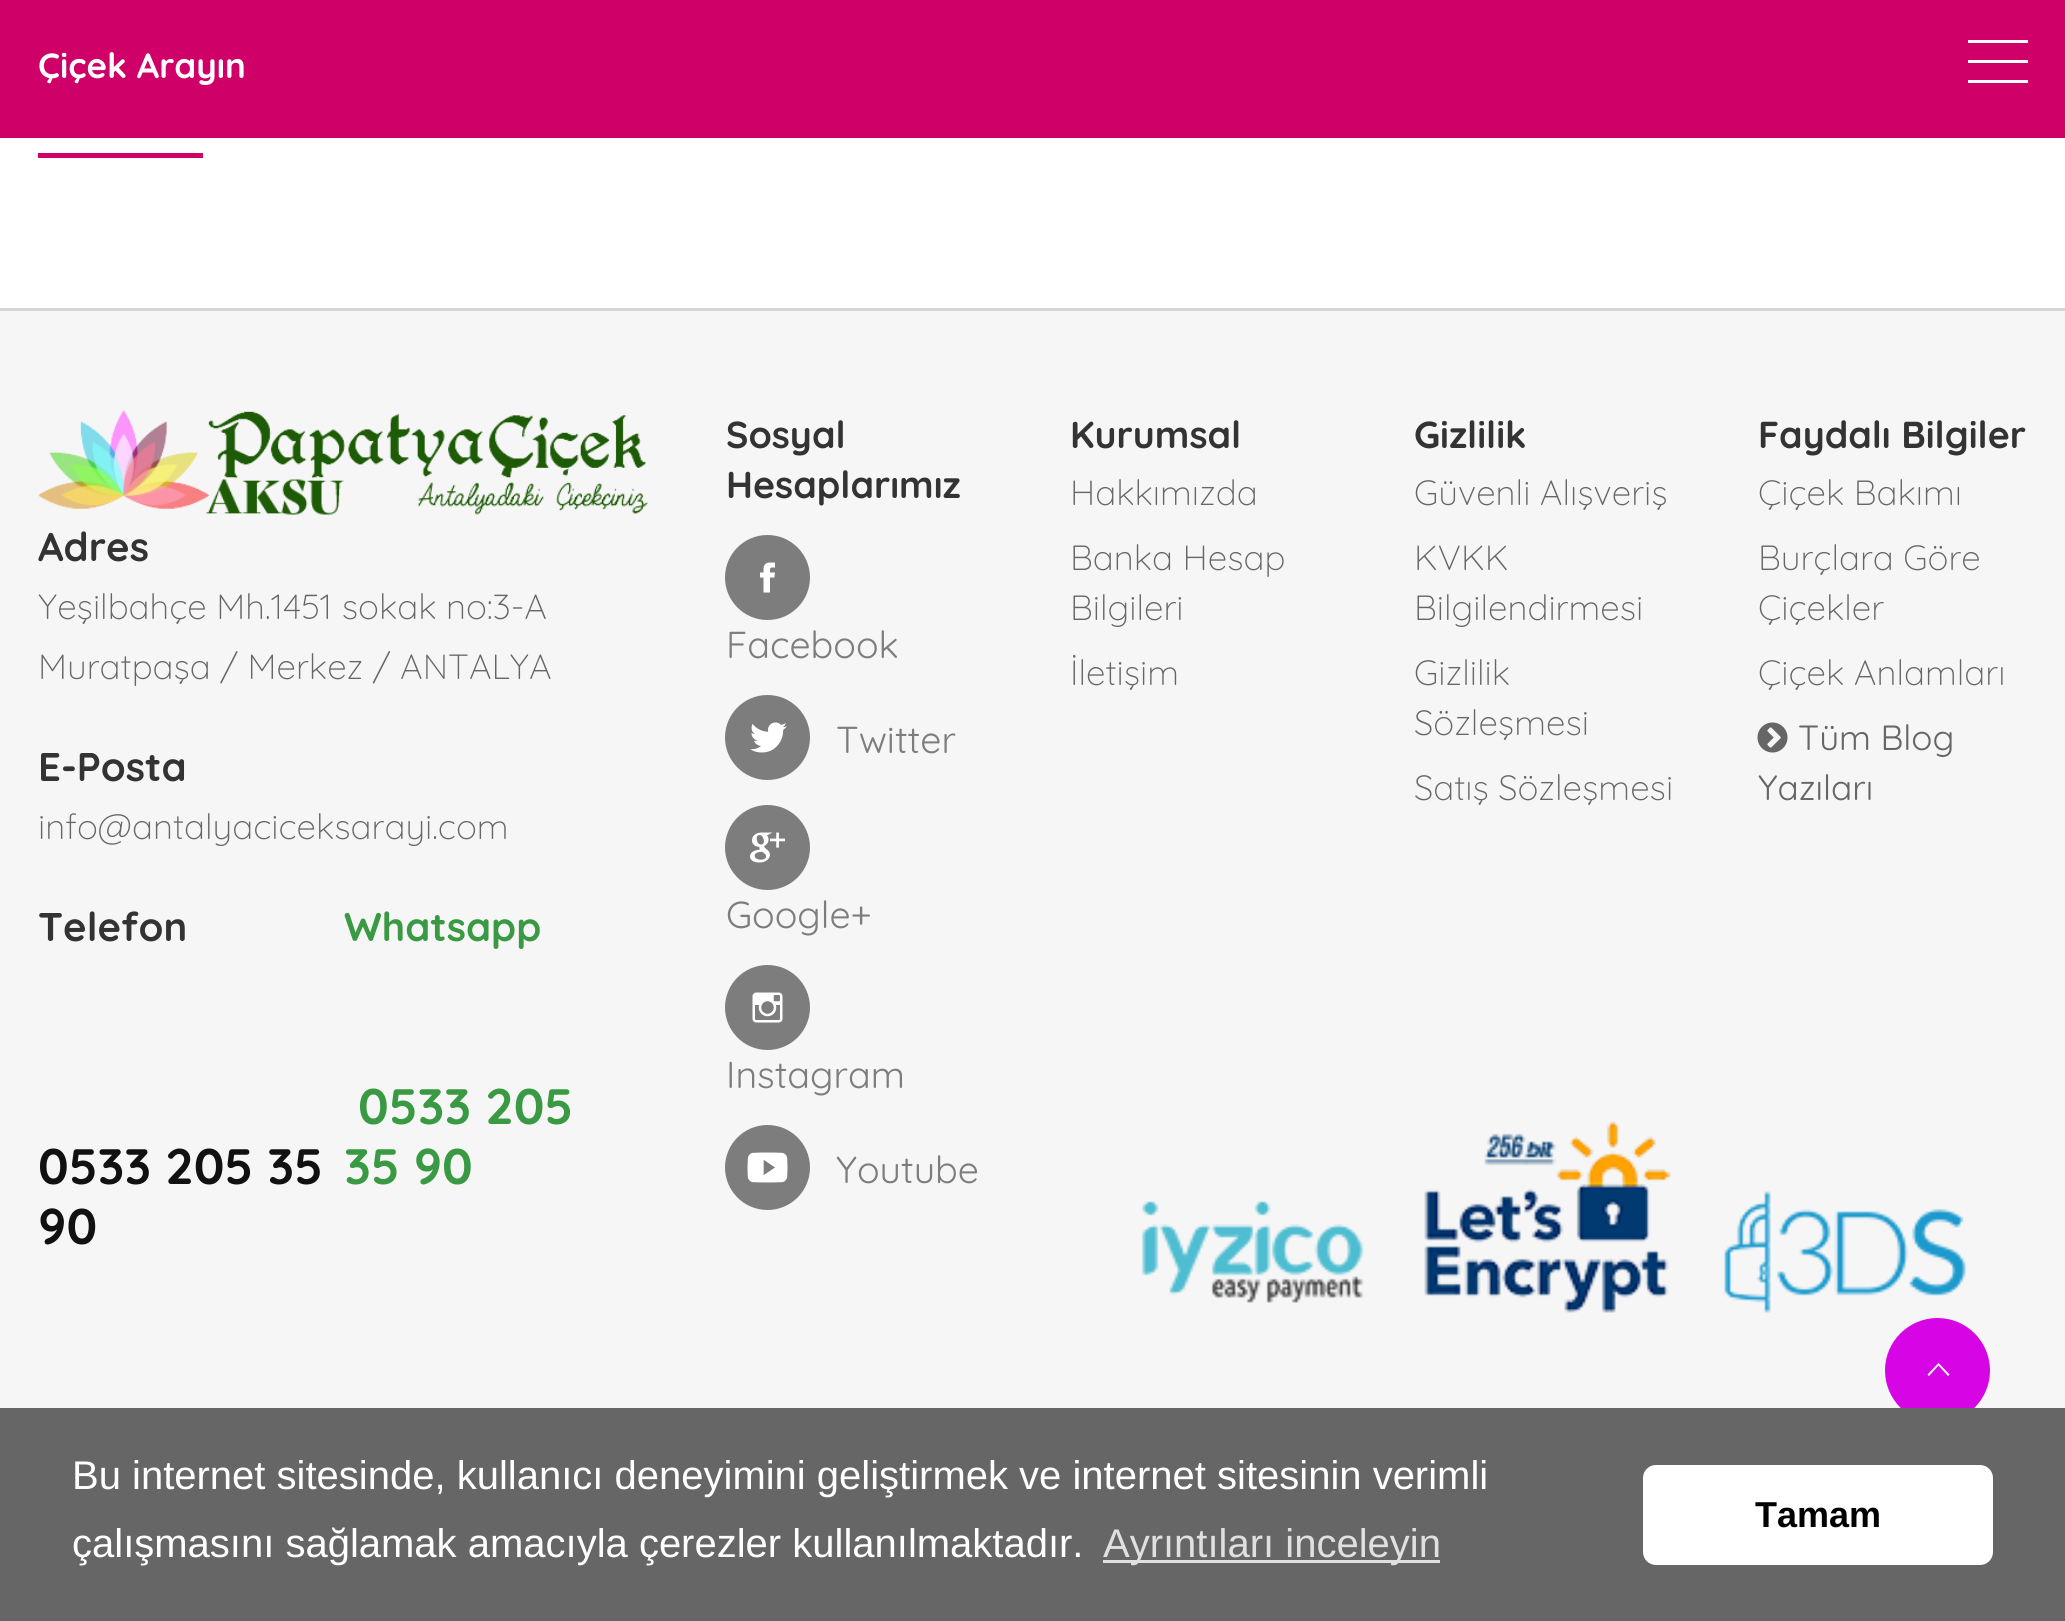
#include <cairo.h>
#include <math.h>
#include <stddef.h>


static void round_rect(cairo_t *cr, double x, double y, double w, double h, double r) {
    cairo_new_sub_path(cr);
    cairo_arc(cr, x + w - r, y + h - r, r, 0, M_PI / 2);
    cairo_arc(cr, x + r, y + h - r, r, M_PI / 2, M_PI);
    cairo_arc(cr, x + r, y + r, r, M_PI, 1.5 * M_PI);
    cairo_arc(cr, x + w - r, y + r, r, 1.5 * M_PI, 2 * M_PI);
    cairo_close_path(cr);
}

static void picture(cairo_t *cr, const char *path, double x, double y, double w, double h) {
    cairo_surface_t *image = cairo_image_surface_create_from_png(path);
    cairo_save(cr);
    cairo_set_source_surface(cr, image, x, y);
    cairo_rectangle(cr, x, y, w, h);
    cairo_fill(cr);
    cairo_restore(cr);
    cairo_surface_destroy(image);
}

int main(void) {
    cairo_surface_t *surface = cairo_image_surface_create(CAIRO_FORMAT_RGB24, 2065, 1621);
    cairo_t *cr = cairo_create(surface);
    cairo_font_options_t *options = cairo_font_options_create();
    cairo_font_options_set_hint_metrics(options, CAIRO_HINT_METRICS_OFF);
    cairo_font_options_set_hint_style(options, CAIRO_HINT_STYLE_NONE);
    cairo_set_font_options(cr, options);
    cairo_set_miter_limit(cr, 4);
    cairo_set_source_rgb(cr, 1, 1, 1);
    cairo_paint(cr);
    cairo_set_source_rgb(cr, 0.812, 0, 0.408);
    cairo_rectangle(cr, 0, 0, 2065, 138);
    cairo_fill(cr);
    cairo_select_font_face(cr, "Quicksand", CAIRO_FONT_SLANT_NORMAL, CAIRO_FONT_WEIGHT_BOLD);
    cairo_set_font_size(cr, 35);
    cairo_set_source_rgb(cr, 1, 1, 1);
    cairo_move_to(cr, 38, 78);
    cairo_show_text(cr, "Çiçek Arayın");
    cairo_rectangle(cr, 1968, 60, 60, 3);
    cairo_fill(cr);
    cairo_rectangle(cr, 1968, 40, 60, 3);
    cairo_fill(cr);
    cairo_rectangle(cr, 1968, 80, 60, 3);
    cairo_fill(cr);
    cairo_set_source_rgb(cr, 0.812, 0, 0.408);
    cairo_rectangle(cr, 38, 153, 165, 5);
    cairo_fill(cr);
    cairo_set_source_rgb(cr, 0.961, 0.961, 0.961);
    cairo_rectangle(cr, 0, 311, 2065, 1097);
    cairo_fill(cr);
    cairo_set_source_rgb(cr, 0.835, 0.835, 0.835);
    cairo_rectangle(cr, 0, 308, 2065, 3);
    cairo_fill(cr);
    picture(cr, "img1.png", 37, 410, 611, 105);
    cairo_set_font_size(cr, 40);
    cairo_set_source_rgb(cr, 0.2, 0.2, 0.2);
    cairo_move_to(cr, 38, 561);
    cairo_show_text(cr, "Adres");
    cairo_select_font_face(cr, "Quicksand Light", CAIRO_FONT_SLANT_NORMAL, CAIRO_FONT_WEIGHT_NORMAL);
    cairo_set_font_size(cr, 35);
    cairo_set_source_rgb(cr, 0.4, 0.4, 0.4);
    cairo_move_to(cr, 38, 619);
    cairo_show_text(cr, "Yeşilbahçe Mh.1451 sokak no:3-A");
    cairo_move_to(cr, 38, 679);
    cairo_show_text(cr, "Muratpaşa / Merkez / ANTALYA");
    cairo_select_font_face(cr, "Quicksand", CAIRO_FONT_SLANT_NORMAL, CAIRO_FONT_WEIGHT_BOLD);
    cairo_set_font_size(cr, 40);
    cairo_set_source_rgb(cr, 0.2, 0.2, 0.2);
    cairo_move_to(cr, 38, 781);
    cairo_show_text(cr, "E-Posta");
    cairo_select_font_face(cr, "Quicksand Light", CAIRO_FONT_SLANT_NORMAL, CAIRO_FONT_WEIGHT_NORMAL);
    cairo_set_font_size(cr, 35);
    cairo_set_source_rgb(cr, 0.4, 0.4, 0.4);
    cairo_move_to(cr, 38, 839);
    cairo_show_text(cr, "info@antalyaciceksarayi.com");
    cairo_select_font_face(cr, "Quicksand", CAIRO_FONT_SLANT_NORMAL, CAIRO_FONT_WEIGHT_BOLD);
    cairo_set_font_size(cr, 40);
    cairo_set_source_rgb(cr, 0.2, 0.2, 0.2);
    cairo_move_to(cr, 38, 941);
    cairo_show_text(cr, "Telefon");
    cairo_set_font_size(cr, 50);
    cairo_set_source_rgb(cr, 0.067, 0.067, 0.067);
    cairo_move_to(cr, 38, 1184);
    cairo_show_text(cr, "0533 205 35");
    cairo_move_to(cr, 38, 1244);
    cairo_show_text(cr, "90");
    cairo_set_font_size(cr, 40);
    cairo_set_source_rgb(cr, 0.227, 0.6, 0.263);
    cairo_move_to(cr, 344, 941);
    cairo_show_text(cr, "Whatsapp");
    cairo_set_font_size(cr, 50);
    cairo_move_to(cr, 358, 1124);
    cairo_show_text(cr, "0533 205");
    cairo_move_to(cr, 344, 1184);
    cairo_show_text(cr, "35 90");
    cairo_set_font_size(cr, 37.5);
    cairo_set_source_rgb(cr, 0.2, 0.2, 0.2);
    cairo_move_to(cr, 726, 448);
    cairo_show_text(cr, "Sosyal");
    cairo_move_to(cr, 726, 498);
    cairo_show_text(cr, "Hesaplarımız");
    cairo_set_source_rgb(cr, 0.49, 0.49, 0.49);
    cairo_new_path(cr);
    cairo_arc(cr, 767.5, 577.5, 42.5, 0, 2 * M_PI);
    cairo_fill(cr);
    picture(cr, "img2.png", 760, 562, 15, 31);
    cairo_select_font_face(cr, "Quicksand", CAIRO_FONT_SLANT_NORMAL, CAIRO_FONT_WEIGHT_NORMAL);
    cairo_move_to(cr, 726, 658);
    cairo_show_text(cr, "Facebook");
    cairo_new_path(cr);
    cairo_arc(cr, 767.5, 737.5, 42.5, 0, 2 * M_PI);
    cairo_fill(cr);
    picture(cr, "img3.png", 750, 722, 37, 31);
    cairo_move_to(cr, 836, 753);
    cairo_show_text(cr, "Twitter");
    cairo_new_path(cr);
    cairo_arc(cr, 767.5, 847.5, 42.5, 0, 2 * M_PI);
    cairo_fill(cr);
    picture(cr, "img4.png", 750, 832, 35, 31);
    cairo_move_to(cr, 726, 928);
    cairo_show_text(cr, "Google+");
    cairo_new_path(cr);
    cairo_arc(cr, 767.5, 1007.5, 42.5, 0, 2 * M_PI);
    cairo_fill(cr);
    picture(cr, "img5.png", 752, 992, 31, 31);
    cairo_move_to(cr, 726, 1088);
    cairo_show_text(cr, "Instagram");
    cairo_new_path(cr);
    cairo_arc(cr, 767.5, 1167.5, 42.5, 0, 2 * M_PI);
    cairo_fill(cr);
    picture(cr, "img6.png", 747, 1152, 41, 31);
    cairo_move_to(cr, 836, 1183);
    cairo_show_text(cr, "Youtube");
    picture(cr, "img7.png", 1141, 1201, 223, 102);
    cairo_select_font_face(cr, "Quicksand", CAIRO_FONT_SLANT_NORMAL, CAIRO_FONT_WEIGHT_BOLD);
    cairo_set_source_rgb(cr, 0.2, 0.2, 0.2);
    cairo_move_to(cr, 1070, 448);
    cairo_show_text(cr, "Kurumsal");
    cairo_select_font_face(cr, "Quicksand Light", CAIRO_FONT_SLANT_NORMAL, CAIRO_FONT_WEIGHT_NORMAL);
    cairo_set_font_size(cr, 35);
    cairo_set_source_rgb(cr, 0.4, 0.4, 0.4);
    cairo_move_to(cr, 1070, 505);
    cairo_show_text(cr, "Hakkımızda");
    cairo_move_to(cr, 1070, 570);
    cairo_show_text(cr, "Banka Hesap");
    cairo_move_to(cr, 1070, 620);
    cairo_show_text(cr, "Bilgileri");
    cairo_move_to(cr, 1070, 685);
    cairo_show_text(cr, "İletişim");
    picture(cr, "img8.png", 1424, 1121, 247, 192);
    cairo_select_font_face(cr, "Quicksand", CAIRO_FONT_SLANT_NORMAL, CAIRO_FONT_WEIGHT_BOLD);
    cairo_set_font_size(cr, 37.5);
    cairo_set_source_rgb(cr, 0.2, 0.2, 0.2);
    cairo_move_to(cr, 1414, 448);
    cairo_show_text(cr, "Gizlilik");
    cairo_select_font_face(cr, "Quicksand Light", CAIRO_FONT_SLANT_NORMAL, CAIRO_FONT_WEIGHT_NORMAL);
    cairo_set_font_size(cr, 35);
    cairo_set_source_rgb(cr, 0.4, 0.4, 0.4);
    cairo_move_to(cr, 1414, 505);
    cairo_show_text(cr, "Güvenli Alışveriş");
    cairo_move_to(cr, 1414, 570);
    cairo_show_text(cr, "KVKK");
    cairo_move_to(cr, 1414, 620);
    cairo_show_text(cr, "Bilgilendirmesi");
    cairo_move_to(cr, 1414, 685);
    cairo_show_text(cr, "Gizlilik");
    cairo_move_to(cr, 1414, 735);
    cairo_show_text(cr, "Sözleşmesi");
    cairo_move_to(cr, 1414, 800);
    cairo_show_text(cr, "Satış Sözleşmesi");
    picture(cr, "img9.png", 1724, 1191, 242, 122);
    cairo_select_font_face(cr, "Quicksand", CAIRO_FONT_SLANT_NORMAL, CAIRO_FONT_WEIGHT_BOLD);
    cairo_set_font_size(cr, 37.5);
    cairo_set_source_rgb(cr, 0.2, 0.2, 0.2);
    cairo_move_to(cr, 1758, 448);
    cairo_show_text(cr, "Faydalı Bilgiler");
    cairo_select_font_face(cr, "Quicksand Light", CAIRO_FONT_SLANT_NORMAL, CAIRO_FONT_WEIGHT_NORMAL);
    cairo_set_font_size(cr, 35);
    cairo_set_source_rgb(cr, 0.4, 0.4, 0.4);
    cairo_move_to(cr, 1758, 505);
    cairo_show_text(cr, "Çiçek Bakımı");
    cairo_move_to(cr, 1758, 570);
    cairo_show_text(cr, "Burçlara Göre");
    cairo_move_to(cr, 1758, 620);
    cairo_show_text(cr, "Çiçekler");
    cairo_move_to(cr, 1758, 685);
    cairo_show_text(cr, "Çiçek Anlamları");
    picture(cr, "img10.png", 1757, 722, 31, 31);
    cairo_select_font_face(cr, "Quicksand", CAIRO_FONT_SLANT_NORMAL, CAIRO_FONT_WEIGHT_NORMAL);
    cairo_move_to(cr, 1798, 750);
    cairo_show_text(cr, "Tüm Blog");
    cairo_move_to(cr, 1758, 800);
    cairo_show_text(cr, "Yazıları");
    cairo_set_source_rgb(cr, 0.843, 0.02, 0.902);
    cairo_new_path(cr);
    cairo_arc(cr, 1937.5, 1370.5, 52.5, 0, 2 * M_PI);
    cairo_fill(cr);
    cairo_set_source_rgb(cr, 1, 1, 1);
    cairo_new_path(cr);
    cairo_move_to(cr, 1948, 1376);
    cairo_line_to(cr, 1938.5, 1365.5);
    cairo_line_to(cr, 1929, 1376);
    cairo_line_to(cr, 1927.5, 1374.5);
    cairo_line_to(cr, 1938.5, 1363);
    cairo_line_to(cr, 1949.5, 1374.5);
    cairo_close_path(cr);
    cairo_fill(cr);
    cairo_set_source_rgb(cr, 0.4, 0.4, 0.4);
    cairo_rectangle(cr, 0, 1408, 2065, 213);
    cairo_fill(cr);
    cairo_select_font_face(cr, "Liberation Sans", CAIRO_FONT_SLANT_NORMAL, CAIRO_FONT_WEIGHT_NORMAL);
    cairo_set_font_size(cr, 40);
    cairo_set_source_rgb(cr, 1, 1, 1);
    cairo_move_to(cr, 72, 1489);
    cairo_show_text(cr, "Bu internet sitesinde, kullanıcı deneyimini geliştirmek ve internet sitesinin verimli");
    cairo_move_to(cr, 72, 1557);
    cairo_show_text(cr, "çalışmasını sağlamak amacıyla çerezler kullanılmaktadır.");
    cairo_set_source_rgb(cr, 0.878, 0.878, 0.878);
    cairo_rectangle(cr, 1103, 1560, 337, 3);
    cairo_fill(cr);
    cairo_move_to(cr, 1103, 1557);
    cairo_show_text(cr, "Ayrıntıları inceleyin");
    cairo_set_source_rgb(cr, 1, 1, 1);
    round_rect(cr, 1643, 1465, 350, 100, 13);
    cairo_fill(cr);
    cairo_select_font_face(cr, "Liberation Sans", CAIRO_FONT_SLANT_NORMAL, CAIRO_FONT_WEIGHT_BOLD);
    cairo_set_font_size(cr, 36);
    cairo_set_source_rgb(cr, 0, 0, 0);
    cairo_move_to(cr, 1755, 1527);
    cairo_show_text(cr, "Tamam");
    cairo_surface_write_to_png(surface, "page.png");
    cairo_font_options_destroy(options);
    cairo_destroy(cr);
    cairo_surface_destroy(surface);
    return 0;
}
